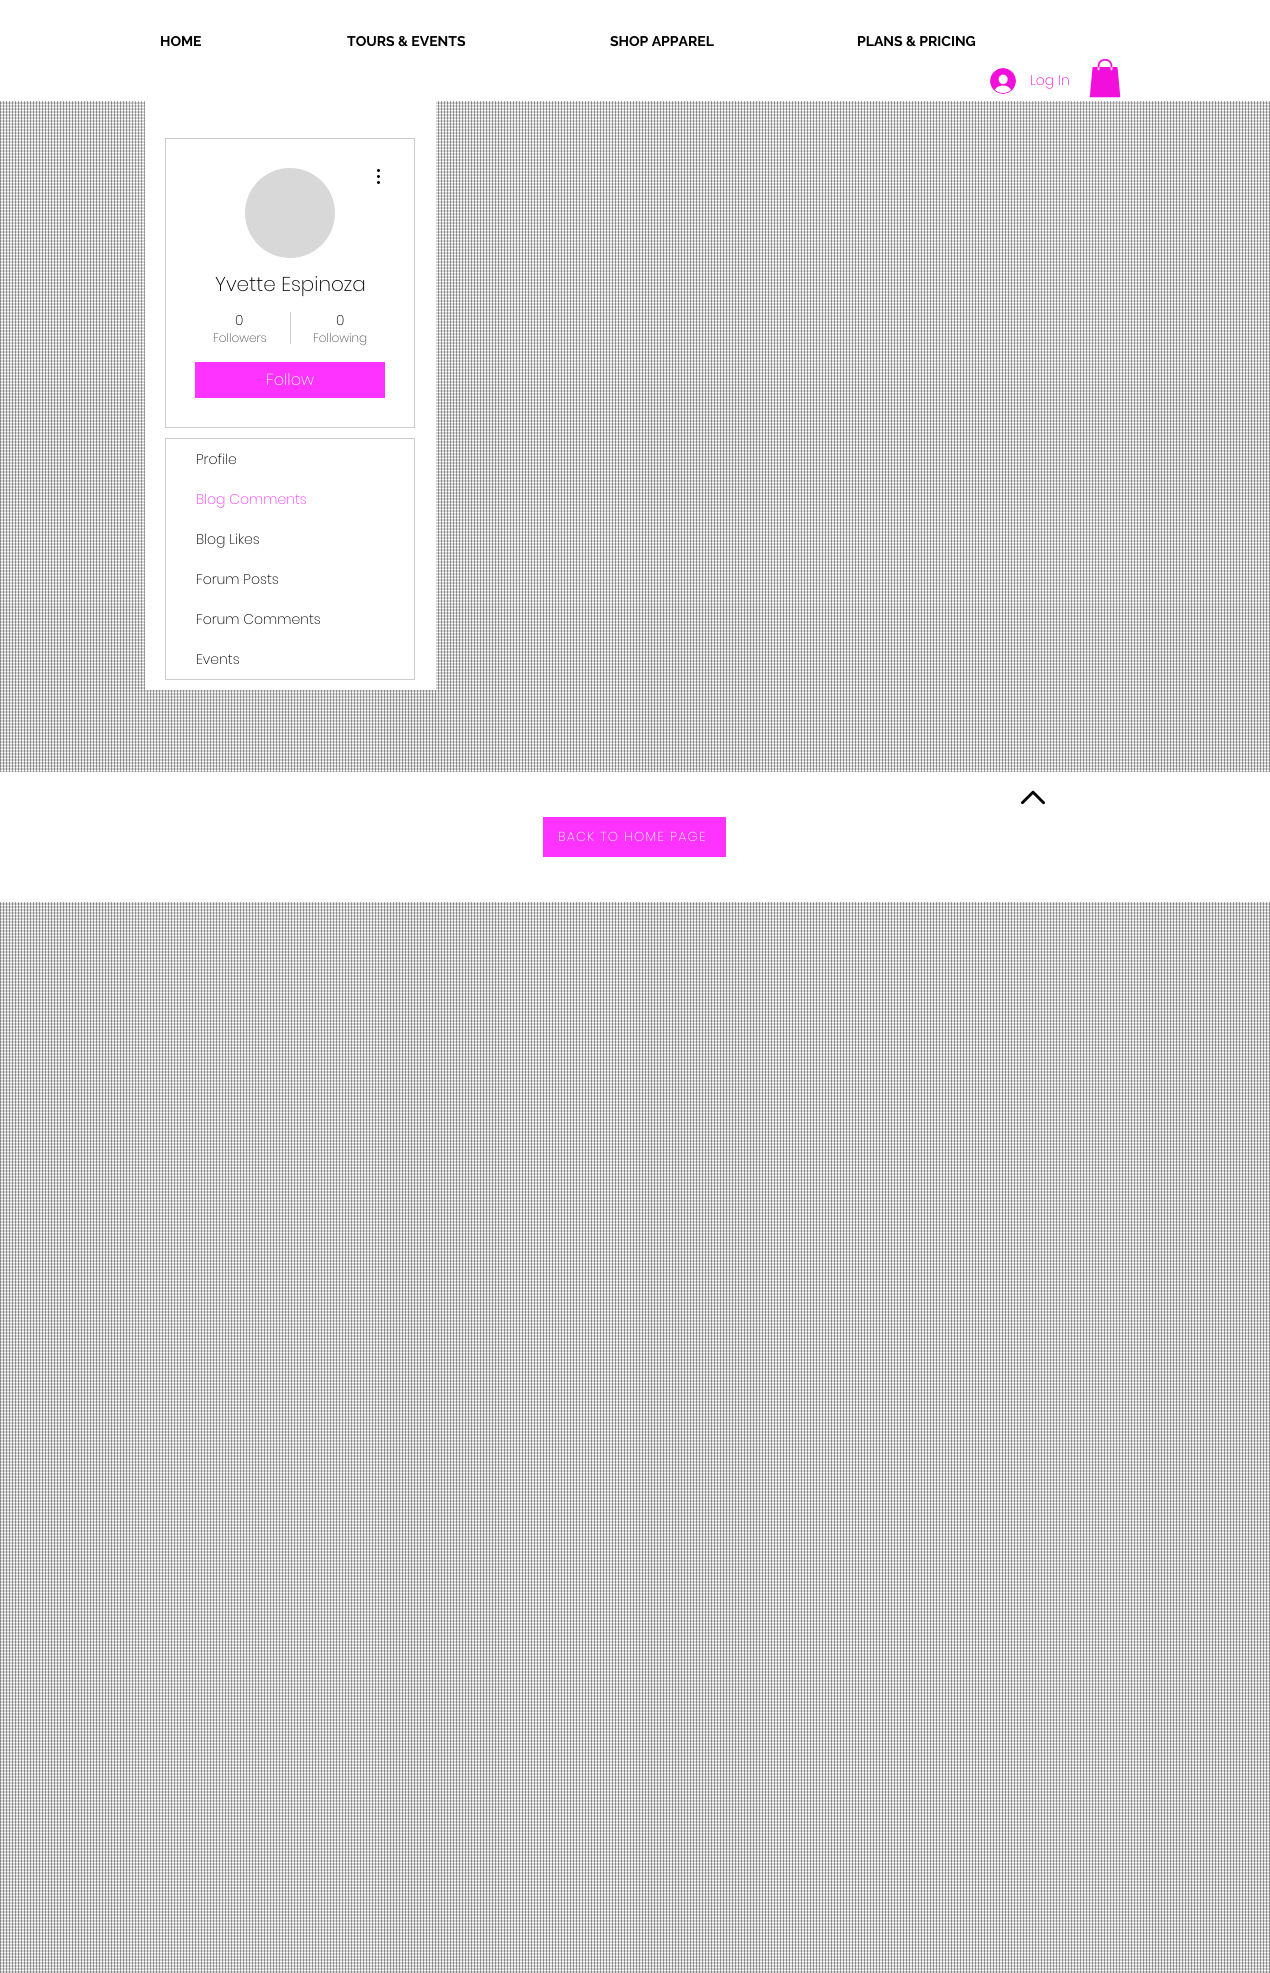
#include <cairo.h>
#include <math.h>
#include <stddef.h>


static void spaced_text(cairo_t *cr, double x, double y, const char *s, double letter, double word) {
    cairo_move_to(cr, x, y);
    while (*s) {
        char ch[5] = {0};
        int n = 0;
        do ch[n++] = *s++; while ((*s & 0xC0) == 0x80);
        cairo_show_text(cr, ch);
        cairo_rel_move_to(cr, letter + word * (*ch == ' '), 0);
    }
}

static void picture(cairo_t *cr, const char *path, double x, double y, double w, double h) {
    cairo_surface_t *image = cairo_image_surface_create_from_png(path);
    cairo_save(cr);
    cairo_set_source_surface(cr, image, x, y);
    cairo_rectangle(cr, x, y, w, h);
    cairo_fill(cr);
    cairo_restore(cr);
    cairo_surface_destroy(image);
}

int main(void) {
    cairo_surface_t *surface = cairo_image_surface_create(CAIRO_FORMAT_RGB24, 1270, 1973);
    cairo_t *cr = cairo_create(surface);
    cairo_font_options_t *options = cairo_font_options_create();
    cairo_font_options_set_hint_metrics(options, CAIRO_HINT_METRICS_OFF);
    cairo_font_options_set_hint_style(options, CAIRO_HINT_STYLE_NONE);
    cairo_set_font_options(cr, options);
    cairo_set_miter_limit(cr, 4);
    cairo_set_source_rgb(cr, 1, 1, 1);
    cairo_paint(cr);
    cairo_select_font_face(cr, "Raleway", CAIRO_FONT_SLANT_NORMAL, CAIRO_FONT_WEIGHT_BOLD);
    cairo_set_font_size(cr, 14);
    cairo_set_source_rgb(cr, 0, 0, 0);
    cairo_move_to(cr, 160, 46);
    cairo_show_text(cr, "HOME");
    cairo_move_to(cr, 347, 46);
    cairo_show_text(cr, "TOURS & EVENTS");
    cairo_move_to(cr, 610, 46);
    cairo_show_text(cr, "SHOP APPAREL");
    cairo_move_to(cr, 857, 46);
    cairo_show_text(cr, "PLANS & PRICING");
    picture(cr, "img1.png", 990, 68, 26, 26);
    cairo_select_font_face(cr, "Poppins ExtraLight", CAIRO_FONT_SLANT_NORMAL, CAIRO_FONT_WEIGHT_NORMAL);
    cairo_set_source_rgb(cr, 0.949, 0.059, 0.859);
    cairo_move_to(cr, 1030, 85);
    cairo_show_text(cr, "Log In");
    picture(cr, "img2.png", 1089, 59, 32, 39);
    picture(cr, "img5.png", 0, 101, 1270, 1872);
    cairo_set_source_rgb(cr, 1, 1, 1);
    cairo_rectangle(cr, 145, 101, 291, 589);
    cairo_fill(cr);
    cairo_rectangle(cr, 165.5, 138.5, 249, 289);
    cairo_set_source_rgb(cr, 0.8, 0.8, 0.8);
    cairo_set_line_width(cr, 1);
    cairo_stroke(cr);
    cairo_set_source_rgb(cr, 0.847, 0.847, 0.847);
    cairo_arc(cr, 290, 213, 45, 0, 2 * M_PI);
    cairo_fill(cr);
    picture(cr, "img3.png", 377, 169, 3, 15);
    cairo_set_font_size(cr, 20);
    cairo_set_source_rgb(cr, 0, 0, 0);
    cairo_move_to(cr, 215, 291);
    cairo_show_text(cr, "Yvette Espinoza");
    cairo_set_font_size(cr, 14);
    cairo_move_to(cr, 235, 325);
    cairo_show_text(cr, "0");
    cairo_set_font_size(cr, 12);
    cairo_set_source_rgb(cr, 0.302, 0.302, 0.302);
    cairo_move_to(cr, 213, 342);
    cairo_show_text(cr, "Followers");
    cairo_set_source_rgb(cr, 0.8, 0.8, 0.8);
    cairo_rectangle(cr, 290, 312, 1, 32);
    cairo_fill(cr);
    cairo_set_font_size(cr, 14);
    cairo_set_source_rgb(cr, 0, 0, 0);
    cairo_move_to(cr, 336, 325);
    cairo_show_text(cr, "0");
    cairo_set_font_size(cr, 12);
    cairo_set_source_rgb(cr, 0.302, 0.302, 0.302);
    cairo_move_to(cr, 313, 342);
    cairo_show_text(cr, "Following");
    cairo_set_source_rgb(cr, 1, 0.2, 1);
    cairo_rectangle(cr, 195, 362, 190, 36);
    cairo_fill(cr);
    cairo_set_font_size(cr, 16);
    cairo_set_source_rgb(cr, 1, 1, 1);
    cairo_move_to(cr, 266, 385);
    cairo_show_text(cr, "Follow");
    cairo_rectangle(cr, 165.5, 438.5, 249, 241);
    cairo_set_source_rgb(cr, 0.8, 0.8, 0.8);
    cairo_stroke(cr);
    cairo_set_font_size(cr, 14);
    cairo_set_source_rgb(cr, 0, 0, 0);
    cairo_move_to(cr, 196, 464);
    cairo_show_text(cr, "Profile");
    cairo_set_source_rgb(cr, 1, 0.2, 1);
    cairo_move_to(cr, 196, 504);
    cairo_show_text(cr, "Blog Comments");
    cairo_set_source_rgb(cr, 0, 0, 0);
    cairo_move_to(cr, 196, 544);
    cairo_show_text(cr, "Blog Likes");
    cairo_move_to(cr, 196, 584);
    cairo_show_text(cr, "Forum Posts");
    cairo_move_to(cr, 196, 624);
    cairo_show_text(cr, "Forum Comments");
    cairo_move_to(cr, 196, 664);
    cairo_show_text(cr, "Events");
    cairo_set_source_rgb(cr, 1, 1, 1);
    cairo_rectangle(cr, 0, 772, 1270, 130);
    cairo_fill(cr);
    picture(cr, "img4.png", 1021, 790, 24, 15);
    cairo_set_source_rgb(cr, 1, 0.2, 1);
    cairo_rectangle(cr, 543, 817, 183, 40);
    cairo_fill(cr);
    cairo_set_font_size(cr, 13);
    cairo_set_source_rgb(cr, 1, 1, 1);
    spaced_text(cr, 558, 841, "BACK TO HOME PAGE", 1.25, 0);
    cairo_surface_write_to_png(surface, "page.png");
    cairo_font_options_destroy(options);
    cairo_destroy(cr);
    cairo_surface_destroy(surface);
    return 0;
}
